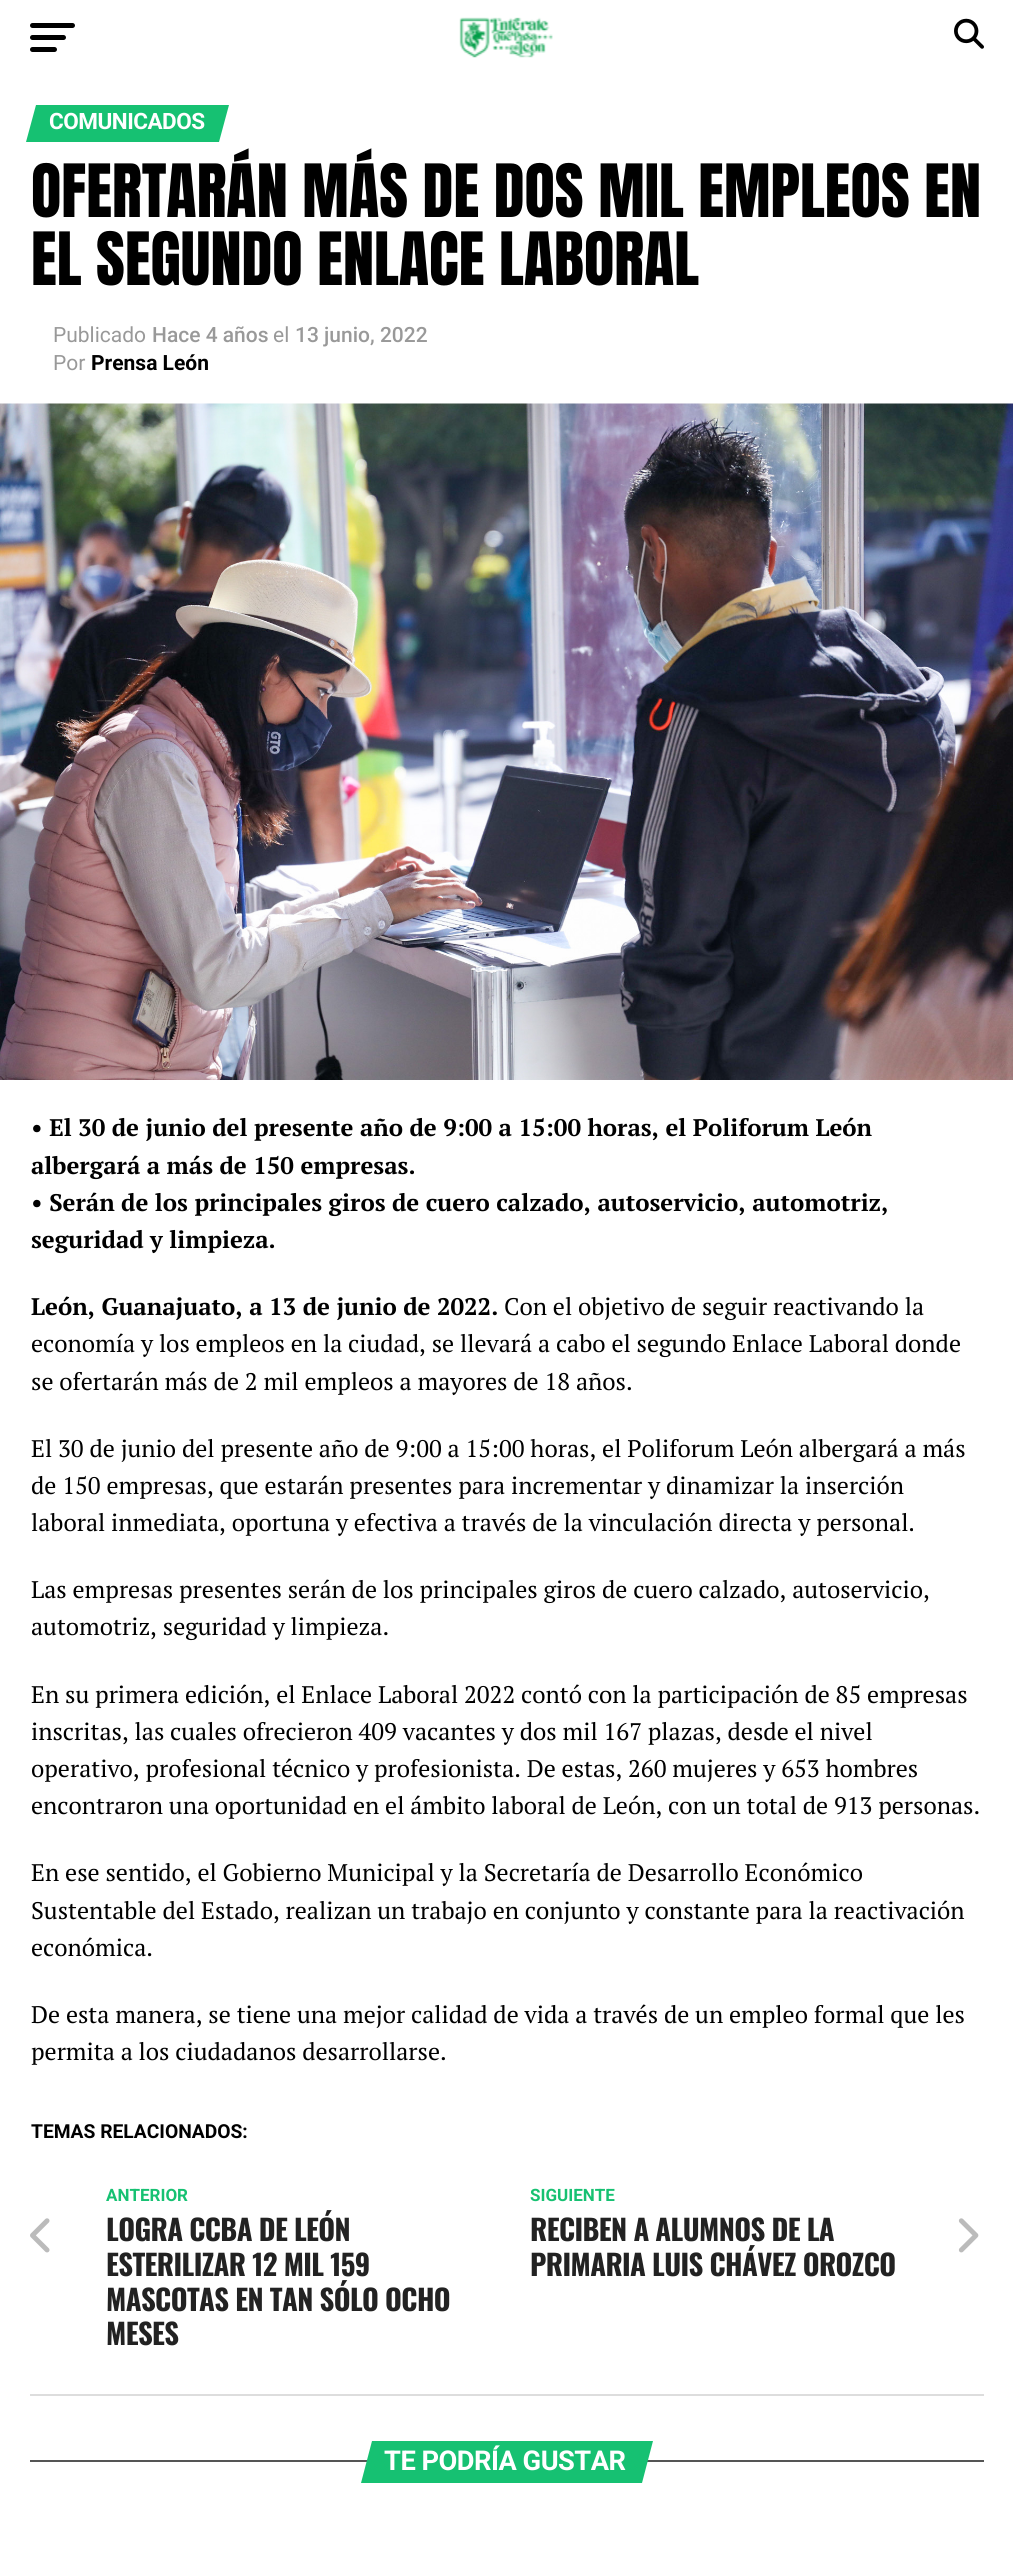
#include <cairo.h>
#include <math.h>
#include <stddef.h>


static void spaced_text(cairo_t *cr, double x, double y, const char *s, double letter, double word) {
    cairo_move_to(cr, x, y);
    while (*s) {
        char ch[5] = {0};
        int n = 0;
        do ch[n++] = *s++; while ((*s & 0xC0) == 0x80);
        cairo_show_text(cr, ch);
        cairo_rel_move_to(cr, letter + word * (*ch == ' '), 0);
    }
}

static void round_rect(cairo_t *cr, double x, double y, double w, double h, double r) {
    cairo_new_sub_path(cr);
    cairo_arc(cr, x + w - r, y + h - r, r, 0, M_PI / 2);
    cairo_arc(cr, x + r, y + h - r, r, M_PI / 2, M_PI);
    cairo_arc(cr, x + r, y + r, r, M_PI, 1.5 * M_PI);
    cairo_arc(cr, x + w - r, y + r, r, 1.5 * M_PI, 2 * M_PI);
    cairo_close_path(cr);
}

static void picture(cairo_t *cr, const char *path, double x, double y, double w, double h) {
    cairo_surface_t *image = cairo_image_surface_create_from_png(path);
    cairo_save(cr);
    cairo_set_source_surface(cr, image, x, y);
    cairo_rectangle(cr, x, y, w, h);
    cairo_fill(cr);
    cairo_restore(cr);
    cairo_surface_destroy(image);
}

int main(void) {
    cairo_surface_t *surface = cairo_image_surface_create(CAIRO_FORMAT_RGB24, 1013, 2559);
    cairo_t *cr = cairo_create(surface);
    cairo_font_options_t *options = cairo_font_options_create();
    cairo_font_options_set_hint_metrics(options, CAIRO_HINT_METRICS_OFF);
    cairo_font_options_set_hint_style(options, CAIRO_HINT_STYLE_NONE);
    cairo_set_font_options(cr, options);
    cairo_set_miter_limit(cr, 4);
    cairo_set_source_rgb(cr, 1, 1, 1);
    cairo_paint(cr);
    cairo_set_source_rgb(cr, 0, 0, 0);
    round_rect(cr, 30, 23, 45, 5, 2.5);
    cairo_fill(cr);
    round_rect(cr, 30, 35, 36, 5, 2.5);
    cairo_fill(cr);
    round_rect(cr, 30, 47, 27, 5, 2.5);
    cairo_fill(cr);
    picture(cr, "img1.png", 459, 17, 94, 41);
    picture(cr, "img2.png", 954, 18, 30, 31);
    cairo_set_source_rgb(cr, 0.086, 0.757, 0.447);
    cairo_new_path(cr);
    cairo_move_to(cr, 36, 105);
    cairo_line_to(cr, 229, 105);
    cairo_line_to(cr, 219, 142);
    cairo_line_to(cr, 26, 142);
    cairo_close_path(cr);
    cairo_fill(cr);
    cairo_select_font_face(cr, "Roboto", CAIRO_FONT_SLANT_NORMAL, CAIRO_FONT_WEIGHT_BOLD);
    cairo_set_font_size(cr, 22.5);
    cairo_set_source_rgb(cr, 1, 1, 1);
    spaced_text(cr, 49, 129, "COMUNICADOS", -0.5, 0);
    cairo_select_font_face(cr, "Anton", CAIRO_FONT_SLANT_NORMAL, CAIRO_FONT_WEIGHT_NORMAL);
    cairo_set_font_size(cr, 62.4);
    cairo_set_source_rgb(cr, 0, 0, 0);
    cairo_move_to(cr, 31, 217);
    cairo_show_text(cr, "OFERTARÁN MÁS DE DOS MIL EMPLEOS EN");
    cairo_move_to(cr, 31, 285);
    cairo_show_text(cr, "EL SEGUNDO ENLACE LABORAL");
    cairo_select_font_face(cr, "Roboto", CAIRO_FONT_SLANT_NORMAL, CAIRO_FONT_WEIGHT_NORMAL);
    cairo_set_font_size(cr, 21);
    cairo_set_source_rgb(cr, 0.6, 0.6, 0.6);
    cairo_move_to(cr, 53, 342);
    cairo_show_text(cr, "Publicado");
    cairo_select_font_face(cr, "Roboto Medium", CAIRO_FONT_SLANT_NORMAL, CAIRO_FONT_WEIGHT_NORMAL);
    cairo_move_to(cr, 152, 342);
    cairo_show_text(cr, "Hace 4 años");
    cairo_select_font_face(cr, "Roboto", CAIRO_FONT_SLANT_NORMAL, CAIRO_FONT_WEIGHT_NORMAL);
    cairo_move_to(cr, 273, 342);
    cairo_show_text(cr, "el");
    cairo_select_font_face(cr, "Roboto Medium", CAIRO_FONT_SLANT_NORMAL, CAIRO_FONT_WEIGHT_NORMAL);
    cairo_move_to(cr, 295, 342);
    cairo_show_text(cr, "13 junio, 2022");
    cairo_select_font_face(cr, "Roboto", CAIRO_FONT_SLANT_NORMAL, CAIRO_FONT_WEIGHT_NORMAL);
    cairo_move_to(cr, 53, 370);
    cairo_show_text(cr, "Por");
    cairo_select_font_face(cr, "Roboto", CAIRO_FONT_SLANT_NORMAL, CAIRO_FONT_WEIGHT_BOLD);
    cairo_set_source_rgb(cr, 0, 0, 0);
    cairo_move_to(cr, 91, 370);
    cairo_show_text(cr, "Prensa León");
    picture(cr, "img3.png", 0, 403, 1013, 677);
    cairo_select_font_face(cr, "PT Serif", CAIRO_FONT_SLANT_NORMAL, CAIRO_FONT_WEIGHT_BOLD);
    cairo_set_font_size(cr, 24);
    cairo_move_to(cr, 31, 1136);
    cairo_show_text(cr, "• El 30 de junio del presente año de 9:00 a 15:00 horas, el Poliforum León");
    cairo_move_to(cr, 31, 1174);
    cairo_show_text(cr, "albergará a más de 150 empresas.");
    cairo_move_to(cr, 31, 1211);
    cairo_show_text(cr, "• Serán de los principales giros de cuero calzado, autoservicio, automotriz,");
    cairo_move_to(cr, 31, 1248);
    cairo_show_text(cr, "seguridad y limpieza.");
    cairo_move_to(cr, 31, 1315);
    cairo_show_text(cr, "León, Guanajuato, a 13 de junio de 2022.");
    cairo_select_font_face(cr, "PT Serif", CAIRO_FONT_SLANT_NORMAL, CAIRO_FONT_WEIGHT_NORMAL);
    cairo_move_to(cr, 504, 1315);
    cairo_show_text(cr, "Con el objetivo de seguir reactivando la");
    cairo_move_to(cr, 31, 1352);
    cairo_show_text(cr, "economía y los empleos en la ciudad, se llevará a cabo el segundo Enlace Laboral donde");
    cairo_move_to(cr, 31, 1390);
    cairo_show_text(cr, "se ofertarán más de 2 mil empleos a mayores de 18 años.");
    cairo_move_to(cr, 31, 1457);
    cairo_show_text(cr, "El 30 de junio del presente año de 9:00 a 15:00 horas, el Poliforum León albergará a más");
    cairo_move_to(cr, 31, 1494);
    cairo_show_text(cr, "de 150 empresas, que estarán presentes para incrementar y dinamizar la inserción");
    cairo_move_to(cr, 31, 1531);
    cairo_show_text(cr, "laboral inmediata, oportuna y efectiva a través de la vinculación directa y personal.");
    cairo_move_to(cr, 31, 1598);
    cairo_show_text(cr, "Las empresas presentes serán de los principales giros de cuero calzado, autoservicio,");
    cairo_move_to(cr, 31, 1635);
    cairo_show_text(cr, "automotriz, seguridad y limpieza.");
    cairo_move_to(cr, 31, 1703);
    cairo_show_text(cr, "En su primera edición, el Enlace Laboral 2022 contó con la participación de 85 empresas");
    cairo_move_to(cr, 31, 1740);
    cairo_show_text(cr, "inscritas, las cuales ofrecieron 409 vacantes y dos mil 167 plazas, desde el nivel");
    cairo_move_to(cr, 31, 1777);
    cairo_show_text(cr, "operativo, profesional técnico y profesionista. De estas, 260 mujeres y 653 hombres");
    cairo_move_to(cr, 31, 1814);
    cairo_show_text(cr, "encontraron una oportunidad en el ámbito laboral de León, con un total de 913 personas.");
    cairo_move_to(cr, 31, 1881);
    cairo_show_text(cr, "En ese sentido, el Gobierno Municipal y la Secretaría de Desarrollo Económico");
    cairo_move_to(cr, 31, 1919);
    cairo_show_text(cr, "Sustentable del Estado, realizan un trabajo en conjunto y constante para la reactivación");
    cairo_move_to(cr, 31, 1956);
    cairo_show_text(cr, "económica.");
    cairo_move_to(cr, 31, 2023);
    cairo_show_text(cr, "De esta manera, se tiene una mejor calidad de vida a través de un empleo formal que les");
    cairo_move_to(cr, 31, 2060);
    cairo_show_text(cr, "permita a los ciudadanos desarrollarse.");
    cairo_select_font_face(cr, "Roboto", CAIRO_FONT_SLANT_NORMAL, CAIRO_FONT_WEIGHT_BOLD);
    cairo_set_font_size(cr, 19.25);
    cairo_move_to(cr, 31, 2138);
    cairo_show_text(cr, "TEMAS RELACIONADOS:");
    cairo_set_source_rgb(cr, 0.867, 0.867, 0.867);
    cairo_rectangle(cr, 30, 2394, 954, 2);
    cairo_fill(cr);
    picture(cr, "img4.png", 30, 2218, 20, 35);
    cairo_set_font_size(cr, 17);
    cairo_set_source_rgb(cr, 0.086, 0.757, 0.447);
    cairo_move_to(cr, 106, 2201);
    cairo_show_text(cr, "ANTERIOR");
    cairo_select_font_face(cr, "Oswald", CAIRO_FONT_SLANT_NORMAL, CAIRO_FONT_WEIGHT_BOLD);
    cairo_set_font_size(cr, 28.75);
    cairo_set_source_rgb(cr, 0.133, 0.133, 0.133);
    spaced_text(cr, 106, 2241, "LOGRA CCBA DE LEÓN", -0.6, 0);
    spaced_text(cr, 106, 2276, "ESTERILIZAR 12 MIL 159", -0.6, 0);
    spaced_text(cr, 106, 2311, "MASCOTAS EN TAN SÓLO OCHO", -0.6, 0);
    spaced_text(cr, 106, 2345, "MESES", -0.6, 0);
    cairo_select_font_face(cr, "Roboto", CAIRO_FONT_SLANT_NORMAL, CAIRO_FONT_WEIGHT_BOLD);
    cairo_set_font_size(cr, 17);
    cairo_set_source_rgb(cr, 0.086, 0.757, 0.447);
    cairo_move_to(cr, 530, 2201);
    cairo_show_text(cr, "SIGUIENTE");
    cairo_select_font_face(cr, "Oswald", CAIRO_FONT_SLANT_NORMAL, CAIRO_FONT_WEIGHT_BOLD);
    cairo_set_font_size(cr, 28.75);
    cairo_set_source_rgb(cr, 0.133, 0.133, 0.133);
    spaced_text(cr, 530, 2241, "RECIBEN A ALUMNOS DE LA", -0.6, 0);
    spaced_text(cr, 530, 2276, "PRIMARIA LUIS CHÁVEZ OROZCO", -0.6, 0);
    picture(cr, "img5.png", 958, 2218, 21, 35);
    cairo_set_source_rgb(cr, 0.333, 0.333, 0.333);
    cairo_rectangle(cr, 30, 2460, 954, 2);
    cairo_fill(cr);
    cairo_set_source_rgb(cr, 0.086, 0.757, 0.447);
    cairo_new_path(cr);
    cairo_move_to(cr, 372, 2441);
    cairo_line_to(cr, 653, 2441);
    cairo_line_to(cr, 642, 2483);
    cairo_line_to(cr, 361, 2483);
    cairo_close_path(cr);
    cairo_fill(cr);
    cairo_select_font_face(cr, "Roboto", CAIRO_FONT_SLANT_NORMAL, CAIRO_FONT_WEIGHT_BOLD);
    cairo_set_font_size(cr, 27.25);
    cairo_set_source_rgb(cr, 1, 1, 1);
    spaced_text(cr, 384, 2470, "TE PODRÍA GUSTAR", -0.5, 0);
    cairo_surface_write_to_png(surface, "page.png");
    cairo_font_options_destroy(options);
    cairo_destroy(cr);
    cairo_surface_destroy(surface);
    return 0;
}
